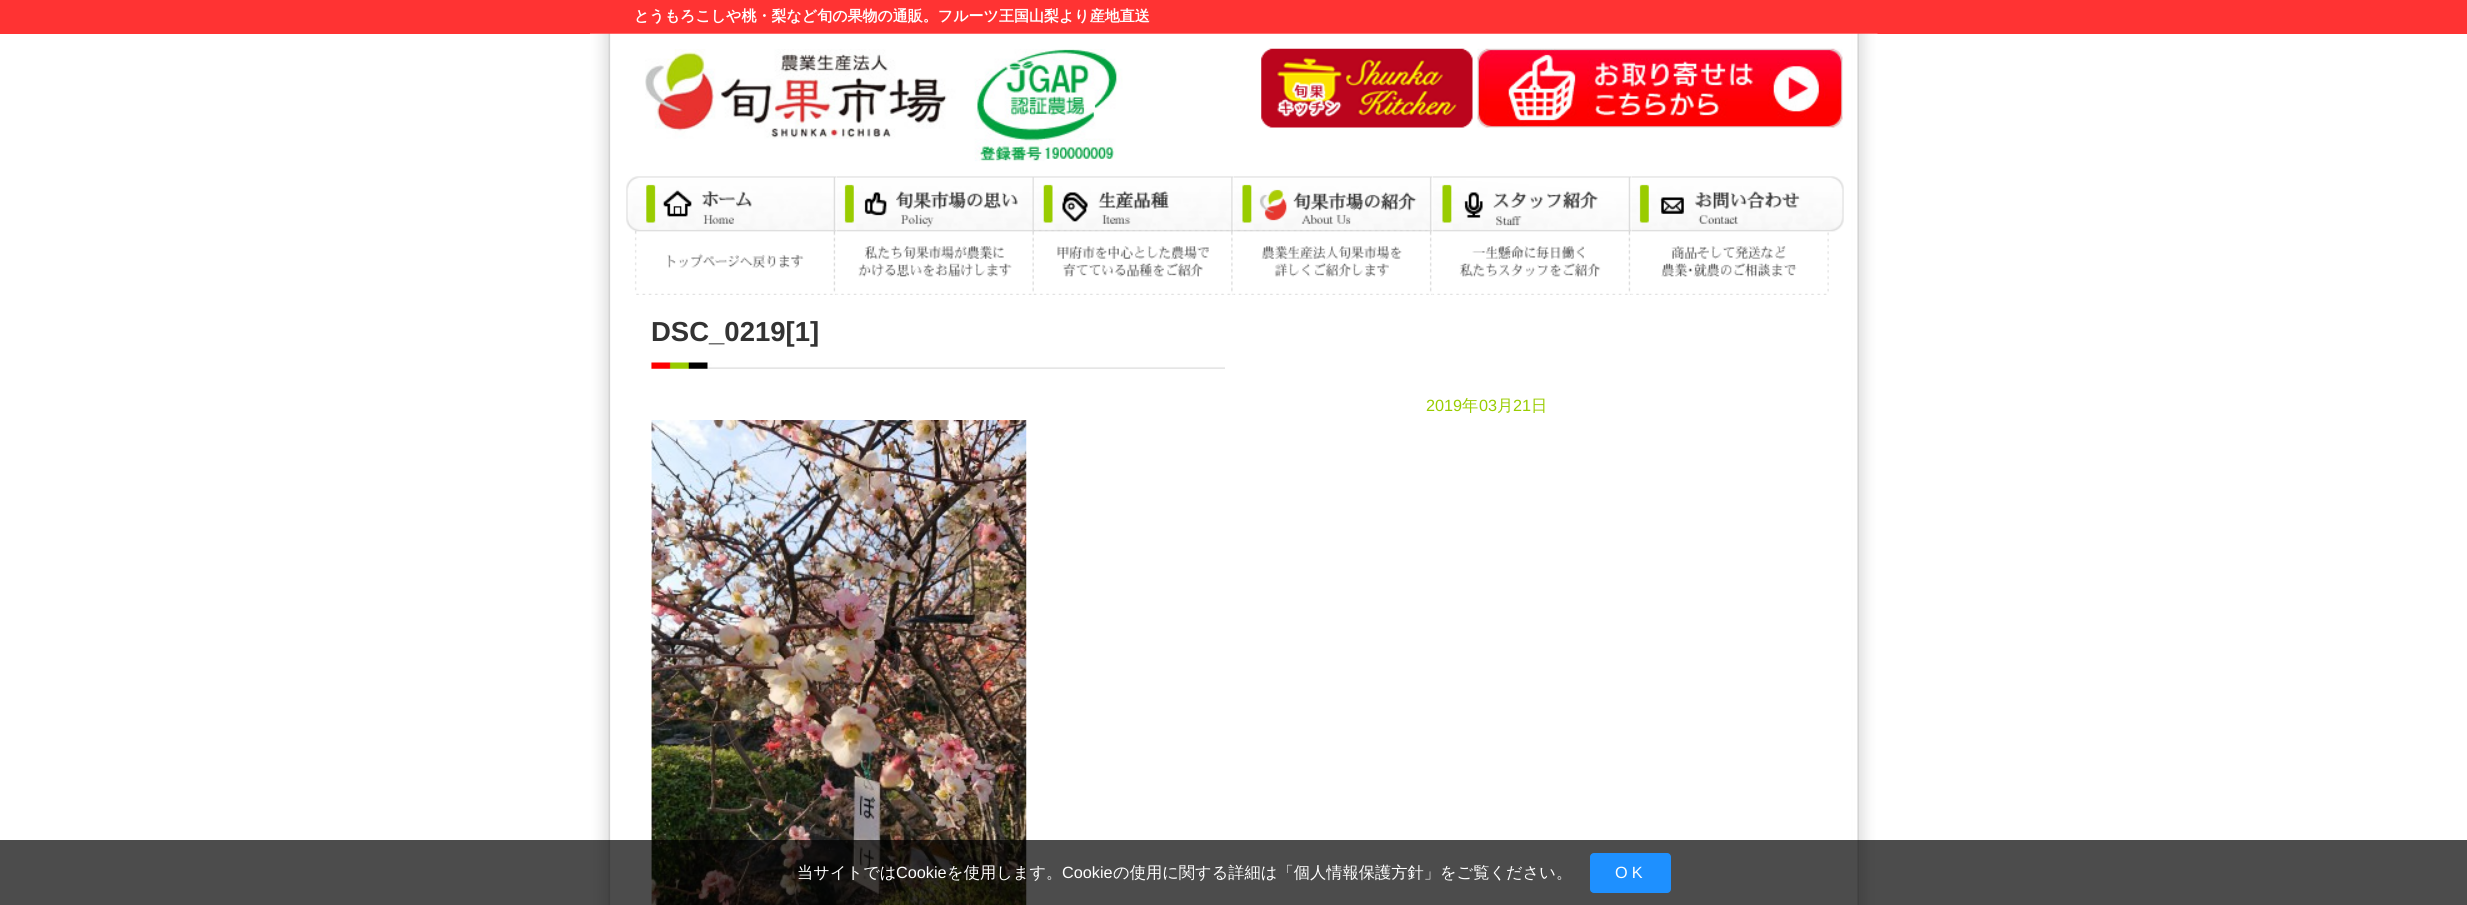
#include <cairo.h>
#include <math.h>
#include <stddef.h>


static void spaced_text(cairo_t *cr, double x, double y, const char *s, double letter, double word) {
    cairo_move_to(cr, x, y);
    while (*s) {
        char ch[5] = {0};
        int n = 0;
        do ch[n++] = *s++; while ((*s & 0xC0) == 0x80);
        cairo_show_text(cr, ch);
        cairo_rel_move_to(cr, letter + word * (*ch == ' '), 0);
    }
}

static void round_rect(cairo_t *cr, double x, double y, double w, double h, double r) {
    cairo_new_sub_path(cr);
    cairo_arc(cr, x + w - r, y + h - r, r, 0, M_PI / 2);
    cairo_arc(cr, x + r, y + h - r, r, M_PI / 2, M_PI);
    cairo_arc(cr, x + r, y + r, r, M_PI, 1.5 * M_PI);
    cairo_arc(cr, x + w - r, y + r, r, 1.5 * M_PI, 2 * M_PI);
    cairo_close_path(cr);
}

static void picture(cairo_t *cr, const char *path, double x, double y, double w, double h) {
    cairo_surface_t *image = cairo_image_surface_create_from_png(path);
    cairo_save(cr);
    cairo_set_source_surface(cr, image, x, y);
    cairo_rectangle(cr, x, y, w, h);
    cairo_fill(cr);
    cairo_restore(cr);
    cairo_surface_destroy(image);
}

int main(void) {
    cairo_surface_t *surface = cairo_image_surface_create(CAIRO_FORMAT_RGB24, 2467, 905);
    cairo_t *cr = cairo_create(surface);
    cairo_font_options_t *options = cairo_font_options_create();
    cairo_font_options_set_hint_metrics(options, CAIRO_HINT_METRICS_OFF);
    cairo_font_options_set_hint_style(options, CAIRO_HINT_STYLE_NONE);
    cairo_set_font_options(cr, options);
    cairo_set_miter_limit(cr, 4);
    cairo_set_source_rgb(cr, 1, 1, 1);
    cairo_paint(cr);
    cairo_set_source_rgb(cr, 1, 0.2, 0.2);
    cairo_rectangle(cr, 0, 0, 2467, 34);
    cairo_fill(cr);
    cairo_select_font_face(cr, "WenQuanYi Zen Hei", CAIRO_FONT_SLANT_NORMAL, CAIRO_FONT_WEIGHT_BOLD);
    cairo_set_font_size(cr, 15);
    cairo_set_source_rgb(cr, 1, 1, 1);
    cairo_move_to(cr, 634, 21);
    cairo_show_text(cr, "とうもろこしや桃・梨など旬の果物の通販。フルーツ王国山梨より産地直送");
    picture(cr, "img1.png", 590, 33, 1288, 872);
    picture(cr, "img2.png", 645, 49, 478, 113);
    picture(cr, "img3.png", 1261, 48, 212, 80);
    picture(cr, "img4.png", 1477, 48, 366, 80);
    picture(cr, "img5.png", 626, 176, 210, 119);
    picture(cr, "img6.png", 836, 176, 199, 119);
    picture(cr, "img7.png", 1035, 176, 199, 119);
    picture(cr, "img8.png", 1234, 176, 199, 119);
    picture(cr, "img9.png", 1432, 176, 199, 119);
    picture(cr, "img10.png", 1631, 176, 213, 119);
    picture(cr, "img11.png", 651, 362, 574, 7);
    cairo_select_font_face(cr, "Liberation Sans", CAIRO_FONT_SLANT_NORMAL, CAIRO_FONT_WEIGHT_BOLD);
    cairo_set_font_size(cr, 27.5);
    cairo_set_source_rgb(cr, 0.2, 0.2, 0.2);
    cairo_move_to(cr, 651, 341);
    cairo_show_text(cr, "DSC_0219[1]");
    cairo_select_font_face(cr, "Liberation Sans", CAIRO_FONT_SLANT_NORMAL, CAIRO_FONT_WEIGHT_NORMAL);
    cairo_set_font_size(cr, 16.25);
    cairo_set_source_rgb(cr, 0.6, 0.8, 0);
    cairo_move_to(cr, 1426, 411);
    cairo_show_text(cr, "2019");
    cairo_select_font_face(cr, "WenQuanYi Zen Hei Medium", CAIRO_FONT_SLANT_NORMAL, CAIRO_FONT_WEIGHT_NORMAL);
    cairo_move_to(cr, 1462, 411);
    cairo_show_text(cr, "年");
    cairo_select_font_face(cr, "Liberation Sans", CAIRO_FONT_SLANT_NORMAL, CAIRO_FONT_WEIGHT_NORMAL);
    cairo_move_to(cr, 1479, 411);
    cairo_show_text(cr, "03");
    cairo_select_font_face(cr, "WenQuanYi Zen Hei Medium", CAIRO_FONT_SLANT_NORMAL, CAIRO_FONT_WEIGHT_NORMAL);
    cairo_move_to(cr, 1497, 411);
    cairo_show_text(cr, "月");
    cairo_select_font_face(cr, "Liberation Sans", CAIRO_FONT_SLANT_NORMAL, CAIRO_FONT_WEIGHT_NORMAL);
    cairo_move_to(cr, 1513, 411);
    cairo_show_text(cr, "21");
    cairo_select_font_face(cr, "WenQuanYi Zen Hei Medium", CAIRO_FONT_SLANT_NORMAL, CAIRO_FONT_WEIGHT_NORMAL);
    cairo_move_to(cr, 1531, 411);
    cairo_show_text(cr, "日");
    picture(cr, "img12.png", 651, 420, 376, 485);
    cairo_set_source_rgba(cr, 0, 0, 0, 0.7);
    cairo_rectangle(cr, 0, 840, 2467, 65);
    cairo_fill(cr);
    cairo_set_source_rgb(cr, 1, 1, 1);
    cairo_move_to(cr, 797, 878);
    cairo_show_text(cr, "当サイトでは");
    cairo_select_font_face(cr, "Liberation Sans", CAIRO_FONT_SLANT_NORMAL, CAIRO_FONT_WEIGHT_NORMAL);
    cairo_move_to(cr, 896, 878);
    cairo_show_text(cr, "Cookie");
    cairo_select_font_face(cr, "WenQuanYi Zen Hei Medium", CAIRO_FONT_SLANT_NORMAL, CAIRO_FONT_WEIGHT_NORMAL);
    cairo_move_to(cr, 947, 878);
    cairo_show_text(cr, "を使用します。");
    cairo_select_font_face(cr, "Liberation Sans", CAIRO_FONT_SLANT_NORMAL, CAIRO_FONT_WEIGHT_NORMAL);
    cairo_move_to(cr, 1062, 878);
    cairo_show_text(cr, "Cookie");
    cairo_select_font_face(cr, "WenQuanYi Zen Hei Medium", CAIRO_FONT_SLANT_NORMAL, CAIRO_FONT_WEIGHT_NORMAL);
    cairo_move_to(cr, 1113, 878);
    cairo_show_text(cr, "の使用に関する詳細は「個人情報保護方針」をご覧ください。");
    cairo_set_source_rgb(cr, 0.118, 0.565, 1);
    round_rect(cr, 1590, 853, 81, 40, 4);
    cairo_fill(cr);
    cairo_select_font_face(cr, "Liberation Sans", CAIRO_FONT_SLANT_NORMAL, CAIRO_FONT_WEIGHT_NORMAL);
    cairo_set_source_rgb(cr, 1, 1, 1);
    spaced_text(cr, 1615, 878, "OK", 4, 0);
    cairo_surface_write_to_png(surface, "page.png");
    cairo_font_options_destroy(options);
    cairo_destroy(cr);
    cairo_surface_destroy(surface);
    return 0;
}
